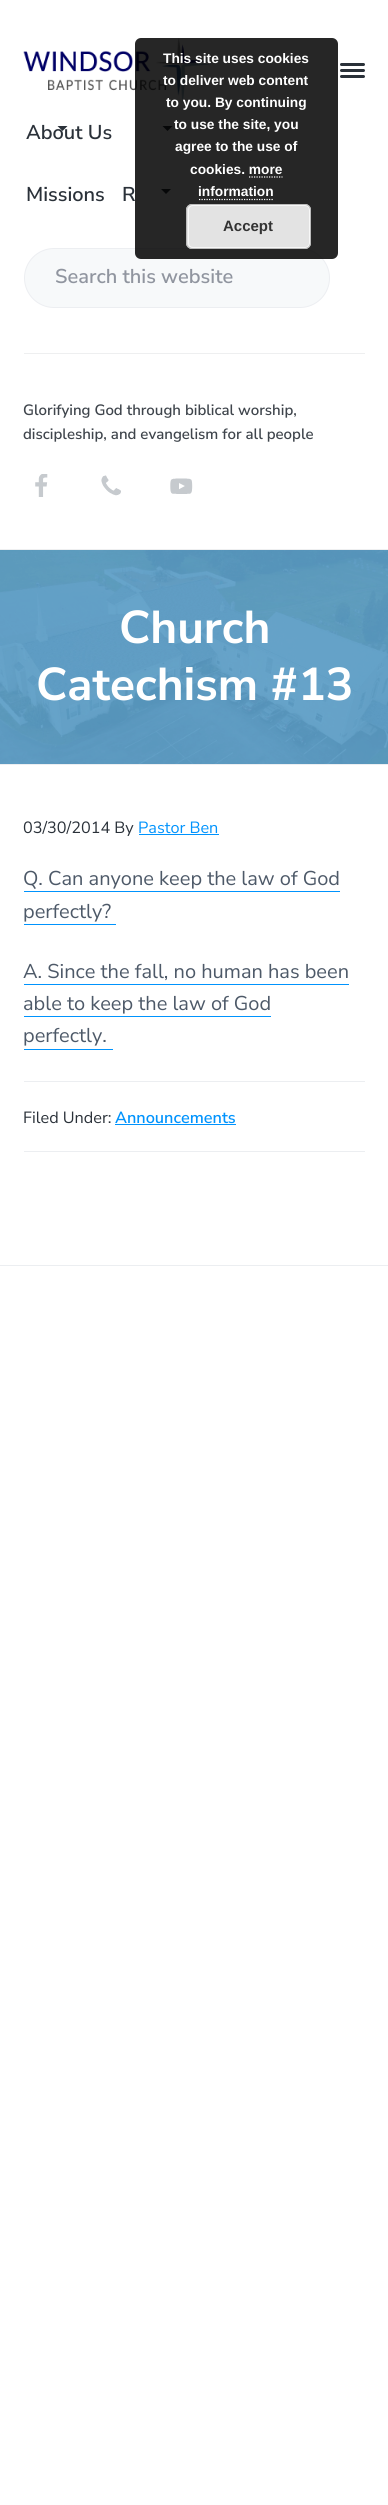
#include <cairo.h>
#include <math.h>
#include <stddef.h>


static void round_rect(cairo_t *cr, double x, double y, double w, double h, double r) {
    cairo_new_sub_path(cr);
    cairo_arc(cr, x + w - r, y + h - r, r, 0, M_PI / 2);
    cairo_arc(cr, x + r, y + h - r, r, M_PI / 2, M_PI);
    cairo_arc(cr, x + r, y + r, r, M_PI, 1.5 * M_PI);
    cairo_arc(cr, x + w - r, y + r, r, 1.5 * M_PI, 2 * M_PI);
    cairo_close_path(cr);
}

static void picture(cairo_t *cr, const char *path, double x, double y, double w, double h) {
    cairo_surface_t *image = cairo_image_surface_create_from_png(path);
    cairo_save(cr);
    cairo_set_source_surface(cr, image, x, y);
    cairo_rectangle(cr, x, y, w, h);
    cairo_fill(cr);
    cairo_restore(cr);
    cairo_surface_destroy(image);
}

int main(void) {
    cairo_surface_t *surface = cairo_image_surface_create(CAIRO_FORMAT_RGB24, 388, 2505);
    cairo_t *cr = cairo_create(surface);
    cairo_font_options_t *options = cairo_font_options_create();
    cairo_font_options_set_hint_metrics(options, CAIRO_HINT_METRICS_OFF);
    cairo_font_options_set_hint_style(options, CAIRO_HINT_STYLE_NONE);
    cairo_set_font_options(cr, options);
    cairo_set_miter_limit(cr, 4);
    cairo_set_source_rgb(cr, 1, 1, 1);
    cairo_paint(cr);
    picture(cr, "img1.png", 23, 38, 188, 65);
    cairo_set_source_rgb(cr, 0.165, 0.192, 0.224);
    cairo_new_path(cr);
    cairo_move_to(cr, 162.5, 126);
    cairo_line_to(cr, 172.5, 126);
    cairo_line_to(cr, 167.5, 131);
    cairo_close_path(cr);
    cairo_fill(cr);
    cairo_select_font_face(cr, "Nunito Sans SemiBold", CAIRO_FONT_SLANT_NORMAL, CAIRO_FONT_WEIGHT_NORMAL);
    cairo_set_font_size(cr, 20);
    cairo_move_to(cr, 122, 201);
    cairo_show_text(cr, "R");
    cairo_new_path(cr);
    cairo_move_to(cr, 161, 189);
    cairo_line_to(cr, 171, 189);
    cairo_line_to(cr, 166, 194);
    cairo_close_path(cr);
    cairo_fill(cr);
    cairo_set_source_rgb(cr, 0.965, 0.973, 0.98);
    round_rect(cr, 24.5, 248.5, 305, 59, 29.5);
    cairo_fill_preserve(cr);
    cairo_set_source_rgb(cr, 0.925, 0.933, 0.945);
    cairo_set_line_width(cr, 1);
    cairo_stroke(cr);
    cairo_set_source_rgba(cr, 0, 0, 0, 0.85);
    round_rect(cr, 135, 38, 203, 221, 6);
    cairo_fill(cr);
    cairo_select_font_face(cr, "Liberation Sans", CAIRO_FONT_SLANT_NORMAL, CAIRO_FONT_WEIGHT_BOLD);
    cairo_set_font_size(cr, 13.75);
    cairo_set_source_rgb(cr, 1, 1, 1);
    cairo_move_to(cr, 163, 63);
    cairo_show_text(cr, "This site uses cookies");
    cairo_move_to(cr, 163, 85);
    cairo_show_text(cr, "to deliver web content");
    cairo_move_to(cr, 166, 107);
    cairo_show_text(cr, "to you. By continuing");
    cairo_move_to(cr, 174, 129);
    cairo_show_text(cr, "to use the site, you");
    cairo_move_to(cr, 175, 151);
    cairo_show_text(cr, "agree to the use of");
    cairo_move_to(cr, 190, 174);
    cairo_show_text(cr, "cookies. more");
    cairo_move_to(cr, 198, 196);
    cairo_show_text(cr, "information");
    cairo_new_path(cr);
    cairo_move_to(cr, 249, 177);
    cairo_line_to(cr, 282.5, 177);
    cairo_set_line_width(cr, 1.2);
    cairo_set_dash(cr, (double[]){1.25, 1.25}, 2, 0);
    cairo_stroke(cr);
    cairo_new_path(cr);
    cairo_move_to(cr, 199, 199.5);
    cairo_line_to(cr, 274, 199.5);
    cairo_stroke(cr);
    cairo_set_source_rgb(cr, 0.89, 0.89, 0.89);
    round_rect(cr, 186, 204, 125, 45, 6);
    cairo_fill(cr);
    round_rect(cr, 188.5, 205.5, 121, 42, 4.5);
    cairo_set_source_rgb(cr, 0.965, 0.965, 0.965);
    cairo_set_line_width(cr, 1);
    cairo_set_dash(cr, NULL, 0, 0);
    cairo_stroke(cr);
    round_rect(cr, 186.5, 204.5, 124, 44, 5.5);
    cairo_set_source_rgb(cr, 0.733, 0.733, 0.733);
    cairo_stroke(cr);
    cairo_set_font_size(cr, 15);
    cairo_set_source_rgb(cr, 0.2, 0.2, 0.2);
    cairo_move_to(cr, 223, 231);
    cairo_show_text(cr, "Accept");
    cairo_set_source_rgb(cr, 0.933, 0.937, 0.941);
    cairo_rectangle(cr, 0, 549, 388, 1);
    cairo_fill(cr);
    cairo_set_source_rgb(cr, 0.165, 0.192, 0.224);
    round_rect(cr, 340, 69, 25, 3, 1.5);
    cairo_fill(cr);
    round_rect(cr, 340, 63, 25, 3, 1.5);
    cairo_fill(cr);
    round_rect(cr, 340, 75, 25, 3, 1.5);
    cairo_fill(cr);
    cairo_select_font_face(cr, "Nunito Sans SemiBold", CAIRO_FONT_SLANT_NORMAL, CAIRO_FONT_WEIGHT_NORMAL);
    cairo_set_font_size(cr, 20);
    cairo_move_to(cr, 26, 139);
    cairo_show_text(cr, "About Us");
    cairo_new_path(cr);
    cairo_move_to(cr, 57.5, 126);
    cairo_line_to(cr, 67.5, 126);
    cairo_line_to(cr, 62.5, 131);
    cairo_close_path(cr);
    cairo_fill(cr);
    cairo_move_to(cr, 26, 201);
    cairo_show_text(cr, "Missions");
    cairo_set_source_rgb(cr, 0.565, 0.584, 0.624);
    cairo_move_to(cr, 55, 283);
    cairo_show_text(cr, "Search this website");
    cairo_set_source_rgb(cr, 0.933, 0.937, 0.941);
    cairo_rectangle(cr, 24, 353, 341, 1);
    cairo_fill(cr);
    cairo_set_font_size(cr, 15);
    cairo_set_source_rgb(cr, 0.247, 0.271, 0.298);
    cairo_move_to(cr, 23, 415);
    cairo_show_text(cr, "Glorifying God through biblical worship,");
    cairo_move_to(cr, 23, 439);
    cairo_show_text(cr, "discipleship, and evangelism for all people");
    picture(cr, "img2.png", 35, 474, 13, 23);
    picture(cr, "img3.png", 101, 475, 20, 21);
    picture(cr, "img4.png", 170, 478, 23, 16);
    picture(cr, "img5.png", 0, 550, 388, 214);
    cairo_set_source_rgb(cr, 0.925, 0.933, 0.945);
    cairo_rectangle(cr, 0, 764, 388, 1);
    cairo_fill(cr);
    cairo_select_font_face(cr, "Nunito Sans", CAIRO_FONT_SLANT_NORMAL, CAIRO_FONT_WEIGHT_BOLD);
    cairo_set_font_size(cr, 46);
    cairo_set_source_rgb(cr, 1, 1, 1);
    cairo_move_to(cr, 119, 643);
    cairo_show_text(cr, "Church");
    cairo_move_to(cr, 36, 700);
    cairo_show_text(cr, "Catechism #13");
    cairo_select_font_face(cr, "Nunito Sans", CAIRO_FONT_SLANT_NORMAL, CAIRO_FONT_WEIGHT_NORMAL);
    cairo_set_font_size(cr, 16.25);
    cairo_set_source_rgb(cr, 0.165, 0.192, 0.224);
    cairo_move_to(cr, 23, 833);
    cairo_show_text(cr, "03/30/2014 By");
    cairo_set_source_rgb(cr, 0, 0.576, 0.992);
    cairo_move_to(cr, 138, 833);
    cairo_show_text(cr, "Pastor Ben");
    cairo_rectangle(cr, 139, 834, 80, 1);
    cairo_fill(cr);
    cairo_set_font_size(cr, 20);
    cairo_set_source_rgb(cr, 0.302, 0.349, 0.408);
    cairo_move_to(cr, 23, 885);
    cairo_show_text(cr, "Q. Can anyone keep the law of God");
    cairo_set_source_rgb(cr, 0, 0.576, 0.992);
    cairo_rectangle(cr, 24, 891, 316, 1);
    cairo_fill(cr);
    cairo_set_source_rgb(cr, 0.302, 0.349, 0.408);
    cairo_move_to(cr, 23, 918);
    cairo_show_text(cr, "perfectly?");
    cairo_set_source_rgb(cr, 0, 0.576, 0.992);
    cairo_rectangle(cr, 24, 924, 92, 1);
    cairo_fill(cr);
    cairo_set_source_rgb(cr, 0.302, 0.349, 0.408);
    cairo_move_to(cr, 23, 978);
    cairo_show_text(cr, "A. Since the fall, no human has been");
    cairo_set_source_rgb(cr, 0, 0.576, 0.992);
    cairo_rectangle(cr, 24, 984, 325, 1);
    cairo_fill(cr);
    cairo_set_source_rgb(cr, 0.302, 0.349, 0.408);
    cairo_move_to(cr, 23, 1010);
    cairo_show_text(cr, "able to keep the law of God");
    cairo_set_source_rgb(cr, 0, 0.576, 0.992);
    cairo_rectangle(cr, 24, 1016, 247, 1);
    cairo_fill(cr);
    cairo_set_source_rgb(cr, 0.302, 0.349, 0.408);
    cairo_move_to(cr, 23, 1042);
    cairo_show_text(cr, "perfectly.");
    cairo_set_source_rgb(cr, 0, 0.576, 0.992);
    cairo_rectangle(cr, 24, 1049, 89, 1);
    cairo_fill(cr);
    cairo_set_source_rgb(cr, 0.925, 0.933, 0.945);
    cairo_rectangle(cr, 24, 1081, 341, 1);
    cairo_fill(cr);
    cairo_rectangle(cr, 24, 1151, 341, 1);
    cairo_fill(cr);
    cairo_set_font_size(cr, 16.25);
    cairo_set_source_rgb(cr, 0.165, 0.192, 0.224);
    cairo_move_to(cr, 23, 1123);
    cairo_show_text(cr, "Filed Under:");
    cairo_select_font_face(cr, "Nunito Sans SemiBold", CAIRO_FONT_SLANT_NORMAL, CAIRO_FONT_WEIGHT_NORMAL);
    cairo_set_source_rgb(cr, 0, 0.576, 0.992);
    cairo_move_to(cr, 115, 1123);
    cairo_show_text(cr, "Announcements");
    cairo_rectangle(cr, 115, 1124, 121, 1);
    cairo_fill(cr);
    cairo_set_source_rgb(cr, 0.925, 0.933, 0.945);
    cairo_rectangle(cr, 0, 1265, 388, 1);
    cairo_fill(cr);
    cairo_surface_write_to_png(surface, "page.png");
    cairo_font_options_destroy(options);
    cairo_destroy(cr);
    cairo_surface_destroy(surface);
    return 0;
}
